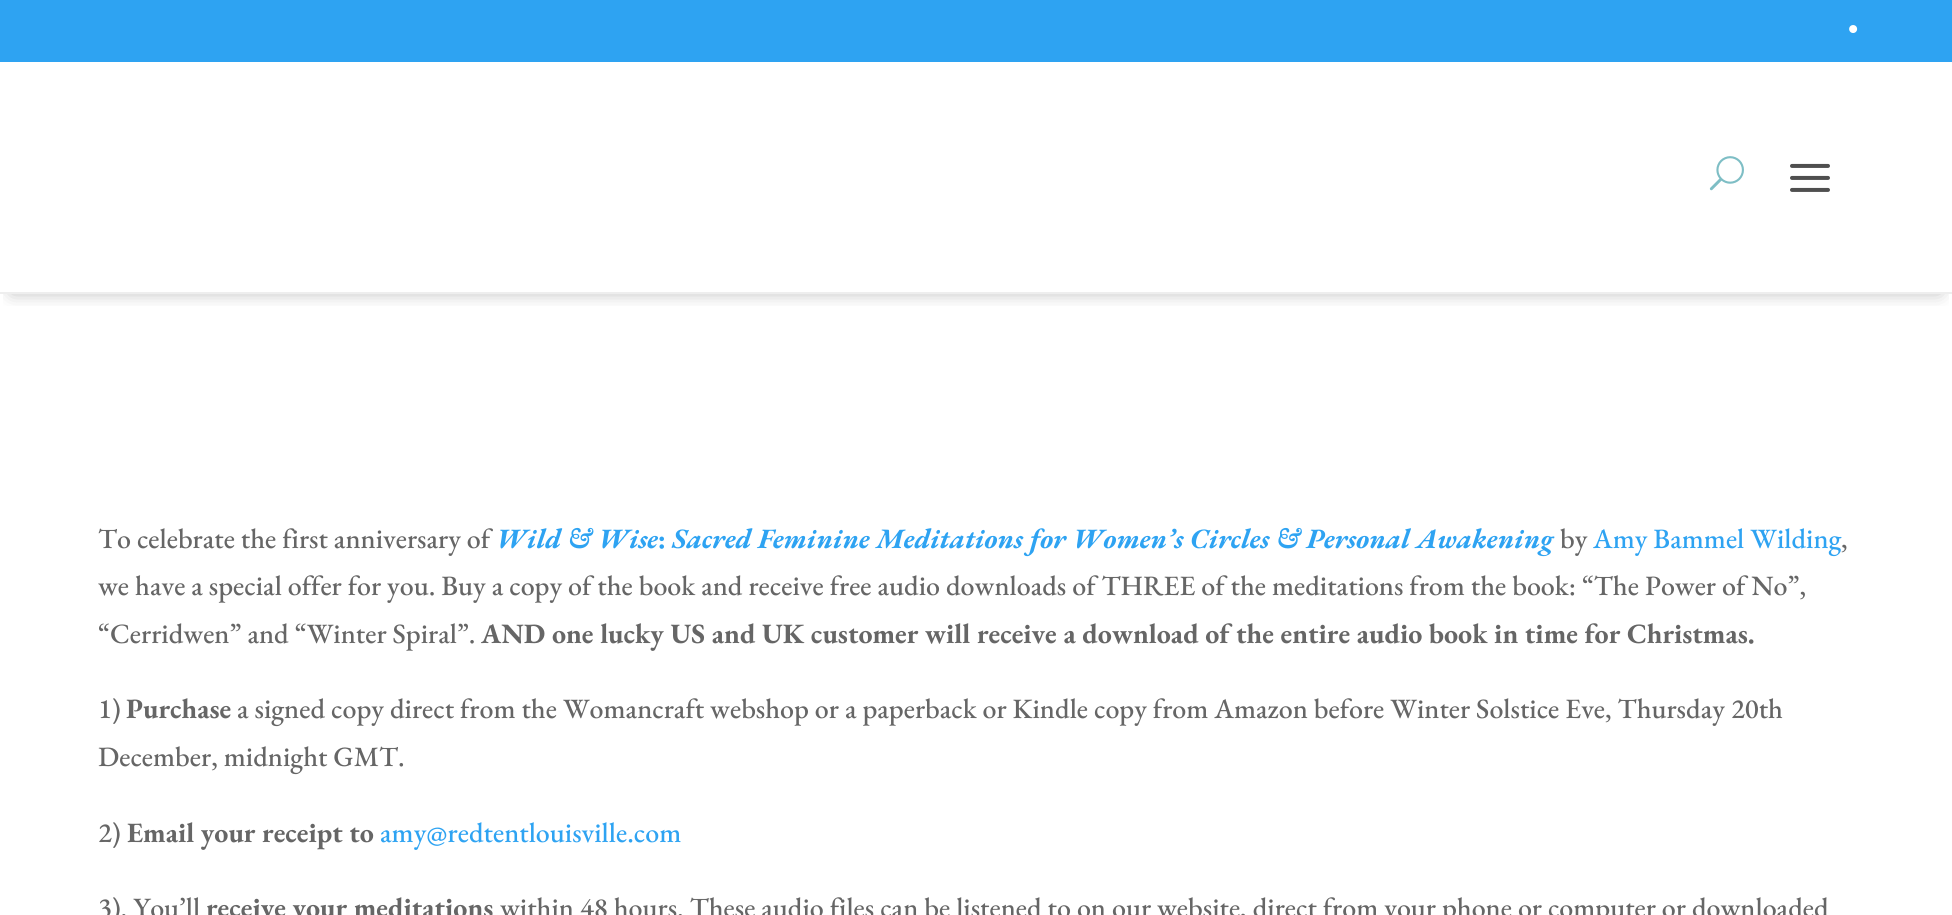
#include <cairo.h>
#include <math.h>
#include <stddef.h>


static void spaced_text(cairo_t *cr, double x, double y, const char *s, double letter, double word) {
    cairo_move_to(cr, x, y);
    while (*s) {
        char ch[5] = {0};
        int n = 0;
        do ch[n++] = *s++; while ((*s & 0xC0) == 0x80);
        cairo_show_text(cr, ch);
        cairo_rel_move_to(cr, letter + word * (*ch == ' '), 0);
    }
}

static void round_rect(cairo_t *cr, double x, double y, double w, double h, double r) {
    cairo_new_sub_path(cr);
    cairo_arc(cr, x + w - r, y + h - r, r, 0, M_PI / 2);
    cairo_arc(cr, x + r, y + h - r, r, M_PI / 2, M_PI);
    cairo_arc(cr, x + r, y + r, r, M_PI, 1.5 * M_PI);
    cairo_arc(cr, x + w - r, y + r, r, 1.5 * M_PI, 2 * M_PI);
    cairo_close_path(cr);
}

static void shadow(cairo_t *cr, double x, double y, double w, double h, double r, double blur, double alpha) {
    cairo_push_group_with_content(cr, CAIRO_CONTENT_ALPHA);
    cairo_set_operator(cr, CAIRO_OPERATOR_SOURCE);
    for (int i = 15; i >= -15 && fmin(w, h) + blur * i / 3 > 0; i -= 2) {
        double e = blur * i / 6;
        cairo_set_source_rgba(cr, 0, 0, 0, alpha * erfc((i - 1) / 8.5) / 2);
        round_rect(cr, x - e, y - e, w + 2 * e, h + 2 * e, fmax(0, fmin(r + e + blur * .6, fmin(w, h) / 2 + e)));
        cairo_fill(cr);
    }
    cairo_pattern_t *soft = cairo_pop_group(cr);
    cairo_mask(cr, soft);
    cairo_pattern_destroy(soft);
}

static void picture(cairo_t *cr, const char *path, double x, double y, double w, double h) {
    cairo_surface_t *image = cairo_image_surface_create_from_png(path);
    cairo_save(cr);
    cairo_set_source_surface(cr, image, x, y);
    cairo_rectangle(cr, x, y, w, h);
    cairo_fill(cr);
    cairo_restore(cr);
    cairo_surface_destroy(image);
}

int main(void) {
    cairo_surface_t *surface = cairo_image_surface_create(CAIRO_FORMAT_RGB24, 1952, 915);
    cairo_t *cr = cairo_create(surface);
    cairo_font_options_t *options = cairo_font_options_create();
    cairo_font_options_set_hint_metrics(options, CAIRO_HINT_METRICS_OFF);
    cairo_font_options_set_hint_style(options, CAIRO_HINT_STYLE_NONE);
    cairo_set_font_options(cr, options);
    cairo_set_miter_limit(cr, 4);
    cairo_set_source_rgb(cr, 1, 1, 1);
    cairo_paint(cr);
    cairo_save(cr);
    cairo_rectangle(cr, 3, 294, 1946, 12);
    cairo_clip(cr);
    cairo_set_source_rgb(cr, 0, 0, 0);
    shadow(cr, 12, 22, 1928, 270, 0, 9, 0.3);
    cairo_restore(cr);
    cairo_set_source_rgb(cr, 0.933, 0.933, 0.933);
    cairo_rectangle(cr, 0, 292, 1952, 2);
    cairo_fill(cr);
    cairo_set_source_rgb(cr, 0.18, 0.639, 0.949);
    cairo_rectangle(cr, 0, 0, 1952, 62);
    cairo_fill(cr);
    cairo_select_font_face(cr, "EB Garamond SemiBold", CAIRO_FONT_SLANT_NORMAL, CAIRO_FONT_WEIGHT_NORMAL);
    cairo_set_font_size(cr, 28);
    cairo_set_source_rgb(cr, 1, 1, 1);
    spaced_text(cr, 1848, 39, "•", 84, 0);
    picture(cr, "img1.png", 1709, 156, 35, 35);
    picture(cr, "img2.png", 1790, 163, 40, 29);
    cairo_select_font_face(cr, "EB Garamond Medium", CAIRO_FONT_SLANT_NORMAL, CAIRO_FONT_WEIGHT_NORMAL);
    cairo_set_source_rgb(cr, 0.4, 0.4, 0.4);
    cairo_move_to(cr, 98, 548);
    cairo_show_text(cr, "To celebrate the first anniversary of");
    cairo_select_font_face(cr, "EB Garamond", CAIRO_FONT_SLANT_ITALIC, CAIRO_FONT_WEIGHT_BOLD);
    cairo_set_source_rgb(cr, 0.18, 0.639, 0.949);
    cairo_move_to(cr, 496, 548);
    cairo_show_text(cr, "Wild & Wise");
    cairo_select_font_face(cr, "EB Garamond", CAIRO_FONT_SLANT_NORMAL, CAIRO_FONT_WEIGHT_BOLD);
    cairo_move_to(cr, 658, 548);
    cairo_show_text(cr, ":");
    cairo_select_font_face(cr, "EB Garamond", CAIRO_FONT_SLANT_ITALIC, CAIRO_FONT_WEIGHT_BOLD);
    cairo_move_to(cr, 672, 548);
    cairo_show_text(cr, "Sacred Feminine Meditations for Women’s Circles & Personal Awakening");
    cairo_select_font_face(cr, "EB Garamond Medium", CAIRO_FONT_SLANT_NORMAL, CAIRO_FONT_WEIGHT_NORMAL);
    cairo_set_source_rgb(cr, 0.4, 0.4, 0.4);
    cairo_move_to(cr, 1560, 548);
    cairo_show_text(cr, "by");
    cairo_set_source_rgb(cr, 0.18, 0.639, 0.949);
    cairo_move_to(cr, 1593, 548);
    cairo_show_text(cr, "Amy Bammel Wilding");
    cairo_set_source_rgb(cr, 0.4, 0.4, 0.4);
    cairo_move_to(cr, 1841, 548);
    cairo_show_text(cr, ",");
    cairo_move_to(cr, 98, 595);
    cairo_show_text(cr, "we have a special offer for you. Buy a copy of the book and receive free audio downloads of THREE of the meditations from the book: “The Power of No”,");
    cairo_move_to(cr, 98, 643);
    cairo_show_text(cr, "“Cerridwen” and “Winter Spiral”.");
    cairo_select_font_face(cr, "EB Garamond", CAIRO_FONT_SLANT_NORMAL, CAIRO_FONT_WEIGHT_BOLD);
    cairo_move_to(cr, 481, 643);
    cairo_show_text(cr, "AND one lucky US and UK customer will receive a download of the entire audio book in time for Christmas.");
    cairo_select_font_face(cr, "EB Garamond Medium", CAIRO_FONT_SLANT_NORMAL, CAIRO_FONT_WEIGHT_NORMAL);
    cairo_move_to(cr, 98, 718);
    cairo_show_text(cr, "1)");
    cairo_select_font_face(cr, "EB Garamond", CAIRO_FONT_SLANT_NORMAL, CAIRO_FONT_WEIGHT_BOLD);
    cairo_move_to(cr, 126, 718);
    cairo_show_text(cr, "Purchase");
    cairo_select_font_face(cr, "EB Garamond Medium", CAIRO_FONT_SLANT_NORMAL, CAIRO_FONT_WEIGHT_NORMAL);
    cairo_move_to(cr, 237, 718);
    cairo_show_text(cr, "a signed copy direct from the Womancraft webshop or a paperback or Kindle copy from Amazon before Winter Solstice Eve, Thursday 20th");
    cairo_move_to(cr, 98, 766);
    cairo_show_text(cr, "December, midnight GMT.");
    cairo_move_to(cr, 98, 842);
    cairo_show_text(cr, "2)");
    cairo_select_font_face(cr, "EB Garamond", CAIRO_FONT_SLANT_NORMAL, CAIRO_FONT_WEIGHT_BOLD);
    cairo_move_to(cr, 127, 842);
    cairo_show_text(cr, "Email your receipt to");
    cairo_select_font_face(cr, "EB Garamond Medium", CAIRO_FONT_SLANT_NORMAL, CAIRO_FONT_WEIGHT_NORMAL);
    cairo_set_source_rgb(cr, 0.18, 0.639, 0.949);
    cairo_move_to(cr, 380, 842);
    cairo_show_text(cr, "amy@redtentlouisville.com");
    cairo_set_source_rgb(cr, 0.4, 0.4, 0.4);
    cairo_move_to(cr, 98, 917);
    cairo_show_text(cr, "3). You’ll");
    cairo_select_font_face(cr, "EB Garamond", CAIRO_FONT_SLANT_NORMAL, CAIRO_FONT_WEIGHT_BOLD);
    cairo_move_to(cr, 206, 917);
    cairo_show_text(cr, "receive your meditations");
    cairo_select_font_face(cr, "EB Garamond Medium", CAIRO_FONT_SLANT_NORMAL, CAIRO_FONT_WEIGHT_NORMAL);
    cairo_move_to(cr, 500, 917);
    cairo_show_text(cr, "within 48 hours. These audio files can be listened to on our website, direct from your phone or computer or downloaded");
    cairo_surface_write_to_png(surface, "page.png");
    cairo_font_options_destroy(options);
    cairo_destroy(cr);
    cairo_surface_destroy(surface);
    return 0;
}
